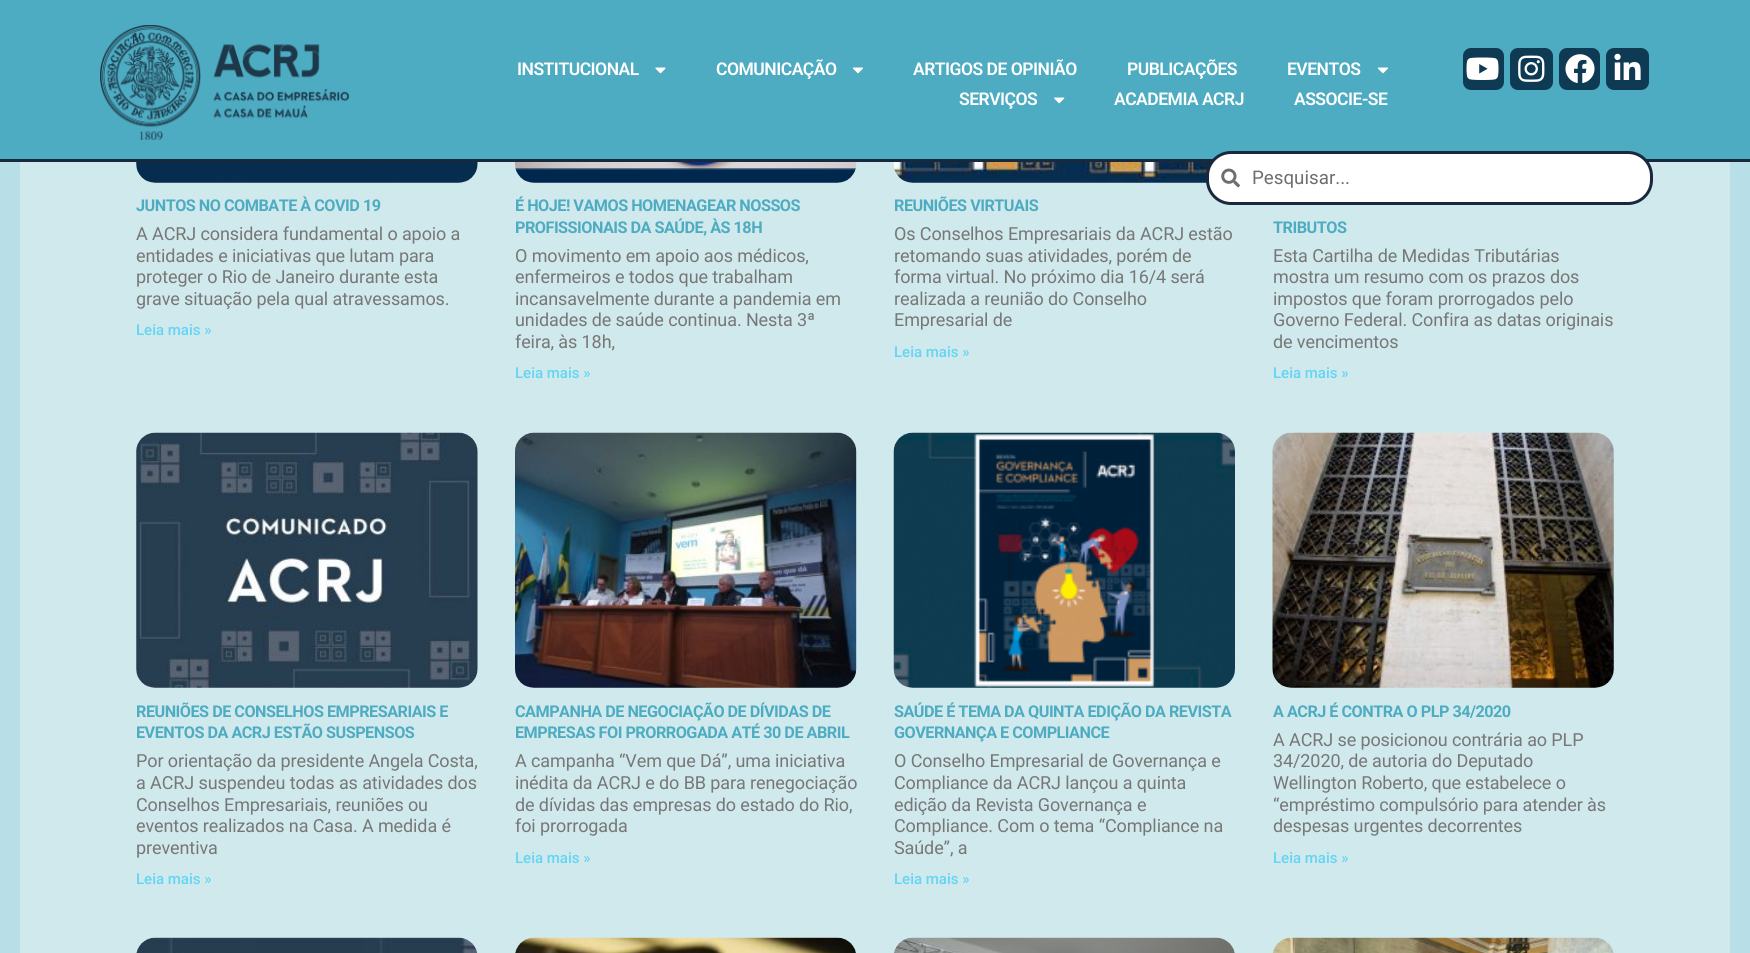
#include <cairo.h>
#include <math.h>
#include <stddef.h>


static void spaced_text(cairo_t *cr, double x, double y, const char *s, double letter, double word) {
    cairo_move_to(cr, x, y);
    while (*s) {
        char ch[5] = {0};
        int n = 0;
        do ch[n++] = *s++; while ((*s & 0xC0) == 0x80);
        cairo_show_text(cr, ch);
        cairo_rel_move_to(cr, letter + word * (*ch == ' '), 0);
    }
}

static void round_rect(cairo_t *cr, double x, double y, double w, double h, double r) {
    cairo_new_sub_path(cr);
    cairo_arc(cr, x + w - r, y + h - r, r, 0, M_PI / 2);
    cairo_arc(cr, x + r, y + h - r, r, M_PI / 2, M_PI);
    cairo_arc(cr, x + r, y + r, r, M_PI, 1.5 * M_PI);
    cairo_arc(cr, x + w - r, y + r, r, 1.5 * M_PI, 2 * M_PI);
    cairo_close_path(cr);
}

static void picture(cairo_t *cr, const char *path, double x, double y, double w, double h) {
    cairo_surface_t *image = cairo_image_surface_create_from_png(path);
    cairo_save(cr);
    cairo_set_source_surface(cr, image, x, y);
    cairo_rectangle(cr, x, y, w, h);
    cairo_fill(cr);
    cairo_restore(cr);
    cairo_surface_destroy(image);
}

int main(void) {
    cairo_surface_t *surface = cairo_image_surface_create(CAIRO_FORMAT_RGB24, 1750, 953);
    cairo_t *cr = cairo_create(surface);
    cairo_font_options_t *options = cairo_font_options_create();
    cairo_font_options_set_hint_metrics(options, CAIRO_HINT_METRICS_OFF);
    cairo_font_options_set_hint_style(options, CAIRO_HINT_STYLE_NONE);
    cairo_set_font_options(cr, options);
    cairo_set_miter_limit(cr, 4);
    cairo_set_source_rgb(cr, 0.722, 0.871, 0.906);
    cairo_paint(cr);
    cairo_set_source_rgb(cr, 0.306, 0.675, 0.761);
    cairo_rectangle(cr, 0, 0, 1750, 159);
    cairo_fill(cr);
    cairo_set_source_rgb(cr, 0.102, 0.157, 0.243);
    cairo_rectangle(cr, 0, 159, 1750, 3);
    cairo_fill(cr);
    picture(cr, "img1.png", 100, 25, 249, 115);
    cairo_select_font_face(cr, "Roboto SemiBold", CAIRO_FONT_SLANT_NORMAL, CAIRO_FONT_WEIGHT_NORMAL);
    cairo_set_font_size(cr, 17.5);
    cairo_set_source_rgb(cr, 1, 1, 1);
    spaced_text(cr, 517, 75, "INSTITUCIONAL", -0.5, 0);
    picture(cr, "img2.png", 655, 67, 11, 7);
    spaced_text(cr, 716, 75, "COMUNICAÇÃO", -0.5, 0);
    picture(cr, "img3.png", 852, 67, 11, 7);
    spaced_text(cr, 913, 75, "ARTIGOS DE OPINIÃO", -0.5, 0);
    spaced_text(cr, 1127, 75, "PUBLICAÇÕES", -0.5, 0);
    spaced_text(cr, 1287, 75, "EVENTOS", -0.5, 0);
    picture(cr, "img3.png", 1377, 67, 11, 7);
    spaced_text(cr, 959, 105, "SERVIÇOS", -0.5, 0);
    picture(cr, "img4.png", 1054, 97, 11, 7);
    spaced_text(cr, 1114, 105, "ACADEMIA ACRJ", -0.5, 0);
    spaced_text(cr, 1294, 105, "ASSOCIE-SE", -0.5, 0);
    cairo_set_source_rgb(cr, 0.816, 0.914, 0.922);
    cairo_rectangle(cr, 20, 162, 1710, 791);
    cairo_fill(cr);
    picture(cr, "img12.png", 893, 162, 318, 21);
    cairo_set_source_rgb(cr, 1, 1, 1);
    round_rect(cr, 1207.5, 152.5, 444, 51, 23.5);
    cairo_fill_preserve(cr);
    cairo_set_source_rgb(cr, 0.102, 0.157, 0.243);
    cairo_set_line_width(cr, 3);
    cairo_stroke(cr);
    picture(cr, "img5.png", 1221, 168, 19, 20);
    cairo_select_font_face(cr, "Roboto", CAIRO_FONT_SLANT_NORMAL, CAIRO_FONT_WEIGHT_NORMAL);
    cairo_set_font_size(cr, 18.75);
    cairo_set_source_rgb(cr, 0.431, 0.431, 0.431);
    cairo_move_to(cr, 1252, 184);
    cairo_show_text(cr, "Pesquisar...");
    cairo_set_source_rgb(cr, 0.055, 0.227, 0.329);
    round_rect(cr, 1463, 48, 41, 42, 8);
    cairo_fill(cr);
    picture(cr, "img6.png", 1466, 57, 33, 23);
    round_rect(cr, 1510, 48, 43, 42, 8);
    cairo_fill(cr);
    picture(cr, "img7.png", 1518, 55, 27, 27);
    round_rect(cr, 1559, 48, 41, 42, 8);
    cairo_fill(cr);
    picture(cr, "img8.png", 1565, 54, 30, 30);
    round_rect(cr, 1606, 48, 43, 42, 8);
    cairo_fill(cr);
    picture(cr, "img9.png", 1614, 53, 27, 27);
    picture(cr, "img10.png", 136, 162, 342, 21);
    cairo_select_font_face(cr, "Roboto", CAIRO_FONT_SLANT_NORMAL, CAIRO_FONT_WEIGHT_BOLD);
    cairo_set_font_size(cr, 16.2);
    cairo_set_source_rgb(cr, 0.306, 0.675, 0.761);
    spaced_text(cr, 136, 211, "JUNTOS NO COMBATE À COVID 19", -0.5, 0);
    cairo_select_font_face(cr, "Roboto", CAIRO_FONT_SLANT_NORMAL, CAIRO_FONT_WEIGHT_NORMAL);
    cairo_set_font_size(cr, 18);
    cairo_set_source_rgb(cr, 0.467, 0.467, 0.467);
    spaced_text(cr, 136, 240, "A ACRJ considera fundamental o apoio a", -0.1, 0);
    spaced_text(cr, 136, 262, "entidades e iniciativas que lutam para", -0.1, 0);
    spaced_text(cr, 136, 283, "proteger o Rio de Janeiro durante esta", -0.1, 0);
    spaced_text(cr, 136, 305, "grave situação pela qual atravessamos.", -0.1, 0);
    cairo_select_font_face(cr, "Roboto Medium", CAIRO_FONT_SLANT_NORMAL, CAIRO_FONT_WEIGHT_NORMAL);
    cairo_set_font_size(cr, 15);
    cairo_set_source_rgb(cr, 0.392, 0.831, 0.957);
    cairo_move_to(cr, 136, 335);
    cairo_show_text(cr, "Leia mais »");
    picture(cr, "img11.png", 515, 162, 342, 21);
    cairo_select_font_face(cr, "Roboto", CAIRO_FONT_SLANT_NORMAL, CAIRO_FONT_WEIGHT_BOLD);
    cairo_set_font_size(cr, 16.2);
    cairo_set_source_rgb(cr, 0.306, 0.675, 0.761);
    spaced_text(cr, 515, 211, "É HOJE! VAMOS HOMENAGEAR NOSSOS", -0.5, 0);
    spaced_text(cr, 515, 233, "PROFISSIONAIS DA SAÚDE, ÀS 18H", -0.5, 0);
    cairo_select_font_face(cr, "Roboto", CAIRO_FONT_SLANT_NORMAL, CAIRO_FONT_WEIGHT_NORMAL);
    cairo_set_font_size(cr, 18);
    cairo_set_source_rgb(cr, 0.467, 0.467, 0.467);
    spaced_text(cr, 515, 262, "O movimento em apoio aos médicos,", -0.1, 0);
    spaced_text(cr, 515, 283, "enfermeiros e todos que trabalham", -0.1, 0);
    spaced_text(cr, 515, 305, "incansavelmente durante a pandemia em", -0.1, 0);
    spaced_text(cr, 515, 326, "unidades de saúde continua. Nesta 3ª", -0.1, 0);
    spaced_text(cr, 515, 348, "feira, às 18h,", -0.1, 0);
    cairo_select_font_face(cr, "Roboto Medium", CAIRO_FONT_SLANT_NORMAL, CAIRO_FONT_WEIGHT_NORMAL);
    cairo_set_font_size(cr, 15);
    cairo_set_source_rgb(cr, 0.392, 0.831, 0.957);
    cairo_move_to(cr, 515, 378);
    cairo_show_text(cr, "Leia mais »");
    cairo_select_font_face(cr, "Roboto", CAIRO_FONT_SLANT_NORMAL, CAIRO_FONT_WEIGHT_BOLD);
    cairo_set_font_size(cr, 16.2);
    cairo_set_source_rgb(cr, 0.306, 0.675, 0.761);
    spaced_text(cr, 894, 211, "REUNIÕES VIRTUAIS", -0.5, 0);
    cairo_select_font_face(cr, "Roboto", CAIRO_FONT_SLANT_NORMAL, CAIRO_FONT_WEIGHT_NORMAL);
    cairo_set_font_size(cr, 18);
    cairo_set_source_rgb(cr, 0.467, 0.467, 0.467);
    spaced_text(cr, 894, 240, "Os Conselhos Empresariais da ACRJ estão", -0.1, 0);
    spaced_text(cr, 894, 262, "retomando suas atividades, porém de", -0.1, 0);
    spaced_text(cr, 894, 283, "forma virtual. No próximo dia 16/4 será", -0.1, 0);
    spaced_text(cr, 894, 305, "realizada a reunião do Conselho", -0.1, 0);
    spaced_text(cr, 894, 326, "Empresarial de", -0.1, 0);
    cairo_select_font_face(cr, "Roboto Medium", CAIRO_FONT_SLANT_NORMAL, CAIRO_FONT_WEIGHT_NORMAL);
    cairo_set_font_size(cr, 15);
    cairo_set_source_rgb(cr, 0.392, 0.831, 0.957);
    cairo_move_to(cr, 894, 357);
    cairo_show_text(cr, "Leia mais »");
    cairo_select_font_face(cr, "Roboto", CAIRO_FONT_SLANT_NORMAL, CAIRO_FONT_WEIGHT_BOLD);
    cairo_set_font_size(cr, 16.2);
    cairo_set_source_rgb(cr, 0.306, 0.675, 0.761);
    spaced_text(cr, 1273, 233, "TRIBUTOS", -0.5, 0);
    cairo_select_font_face(cr, "Roboto", CAIRO_FONT_SLANT_NORMAL, CAIRO_FONT_WEIGHT_NORMAL);
    cairo_set_font_size(cr, 18);
    cairo_set_source_rgb(cr, 0.467, 0.467, 0.467);
    spaced_text(cr, 1273, 262, "Esta Cartilha de Medidas Tributárias", -0.1, 0);
    spaced_text(cr, 1273, 283, "mostra um resumo com os prazos dos", -0.1, 0);
    spaced_text(cr, 1273, 305, "impostos que foram prorrogados pelo", -0.1, 0);
    spaced_text(cr, 1273, 326, "Governo Federal. Confira as datas originais", -0.1, 0);
    spaced_text(cr, 1273, 348, "de vencimentos", -0.1, 0);
    cairo_select_font_face(cr, "Roboto Medium", CAIRO_FONT_SLANT_NORMAL, CAIRO_FONT_WEIGHT_NORMAL);
    cairo_set_font_size(cr, 15);
    cairo_set_source_rgb(cr, 0.392, 0.831, 0.957);
    cairo_move_to(cr, 1273, 378);
    cairo_show_text(cr, "Leia mais »");
    picture(cr, "img13.png", 136, 432, 342, 256);
    cairo_select_font_face(cr, "Roboto", CAIRO_FONT_SLANT_NORMAL, CAIRO_FONT_WEIGHT_BOLD);
    cairo_set_font_size(cr, 16.2);
    cairo_set_source_rgb(cr, 0.306, 0.675, 0.761);
    spaced_text(cr, 136, 717, "REUNIÕES DE CONSELHOS EMPRESARIAIS E", -0.5, 0);
    spaced_text(cr, 136, 738, "EVENTOS DA ACRJ ESTÃO SUSPENSOS", -0.5, 0);
    cairo_select_font_face(cr, "Roboto", CAIRO_FONT_SLANT_NORMAL, CAIRO_FONT_WEIGHT_NORMAL);
    cairo_set_font_size(cr, 18);
    cairo_set_source_rgb(cr, 0.467, 0.467, 0.467);
    spaced_text(cr, 136, 767, "Por orientação da presidente Angela Costa,", -0.1, 0);
    spaced_text(cr, 136, 789, "a ACRJ suspendeu todas as atividades dos", -0.1, 0);
    spaced_text(cr, 136, 811, "Conselhos Empresariais, reuniões ou", -0.1, 0);
    spaced_text(cr, 136, 832, "eventos realizados na Casa. A medida é", -0.1, 0);
    spaced_text(cr, 136, 854, "preventiva", -0.1, 0);
    cairo_select_font_face(cr, "Roboto Medium", CAIRO_FONT_SLANT_NORMAL, CAIRO_FONT_WEIGHT_NORMAL);
    cairo_set_font_size(cr, 15);
    cairo_set_source_rgb(cr, 0.392, 0.831, 0.957);
    cairo_move_to(cr, 136, 884);
    cairo_show_text(cr, "Leia mais »");
    picture(cr, "img14.png", 515, 432, 342, 256);
    cairo_select_font_face(cr, "Roboto", CAIRO_FONT_SLANT_NORMAL, CAIRO_FONT_WEIGHT_BOLD);
    cairo_set_font_size(cr, 16.2);
    cairo_set_source_rgb(cr, 0.306, 0.675, 0.761);
    spaced_text(cr, 515, 717, "CAMPANHA DE NEGOCIAÇÃO DE DÍVIDAS DE", -0.5, 0);
    spaced_text(cr, 515, 738, "EMPRESAS FOI PRORROGADA ATÉ 30 DE ABRIL", -0.5, 0);
    cairo_select_font_face(cr, "Roboto", CAIRO_FONT_SLANT_NORMAL, CAIRO_FONT_WEIGHT_NORMAL);
    cairo_set_font_size(cr, 18);
    cairo_set_source_rgb(cr, 0.467, 0.467, 0.467);
    spaced_text(cr, 515, 767, "A campanha “Vem que Dá”, uma iniciativa", -0.1, 0);
    spaced_text(cr, 515, 789, "inédita da ACRJ e do BB para renegociação", -0.1, 0);
    spaced_text(cr, 515, 811, "de dívidas das empresas do estado do Rio,", -0.1, 0);
    spaced_text(cr, 515, 832, "foi prorrogada", -0.1, 0);
    cairo_select_font_face(cr, "Roboto Medium", CAIRO_FONT_SLANT_NORMAL, CAIRO_FONT_WEIGHT_NORMAL);
    cairo_set_font_size(cr, 15);
    cairo_set_source_rgb(cr, 0.392, 0.831, 0.957);
    cairo_move_to(cr, 515, 863);
    cairo_show_text(cr, "Leia mais »");
    picture(cr, "img15.png", 893, 432, 342, 256);
    cairo_select_font_face(cr, "Roboto", CAIRO_FONT_SLANT_NORMAL, CAIRO_FONT_WEIGHT_BOLD);
    cairo_set_font_size(cr, 16.2);
    cairo_set_source_rgb(cr, 0.306, 0.675, 0.761);
    spaced_text(cr, 894, 717, "SAÚDE É TEMA DA QUINTA EDIÇÃO DA REVISTA", -0.5, 0);
    spaced_text(cr, 894, 738, "GOVERNANÇA E COMPLIANCE", -0.5, 0);
    cairo_select_font_face(cr, "Roboto", CAIRO_FONT_SLANT_NORMAL, CAIRO_FONT_WEIGHT_NORMAL);
    cairo_set_font_size(cr, 18);
    cairo_set_source_rgb(cr, 0.467, 0.467, 0.467);
    spaced_text(cr, 894, 767, "O Conselho Empresarial de Governança e", -0.1, 0);
    spaced_text(cr, 894, 789, "Compliance da ACRJ lançou a quinta", -0.1, 0);
    spaced_text(cr, 894, 811, "edição da Revista Governança e", -0.1, 0);
    spaced_text(cr, 894, 832, "Compliance. Com o tema “Compliance na", -0.1, 0);
    spaced_text(cr, 894, 854, "Saúde”, a", -0.1, 0);
    cairo_select_font_face(cr, "Roboto Medium", CAIRO_FONT_SLANT_NORMAL, CAIRO_FONT_WEIGHT_NORMAL);
    cairo_set_font_size(cr, 15);
    cairo_set_source_rgb(cr, 0.392, 0.831, 0.957);
    cairo_move_to(cr, 894, 884);
    cairo_show_text(cr, "Leia mais »");
    picture(cr, "img16.png", 1272, 432, 342, 256);
    cairo_select_font_face(cr, "Roboto", CAIRO_FONT_SLANT_NORMAL, CAIRO_FONT_WEIGHT_BOLD);
    cairo_set_font_size(cr, 16.2);
    cairo_set_source_rgb(cr, 0.306, 0.675, 0.761);
    spaced_text(cr, 1273, 717, "A ACRJ É CONTRA O PLP 34/2020", -0.5, 0);
    cairo_select_font_face(cr, "Roboto", CAIRO_FONT_SLANT_NORMAL, CAIRO_FONT_WEIGHT_NORMAL);
    cairo_set_font_size(cr, 18);
    cairo_set_source_rgb(cr, 0.467, 0.467, 0.467);
    spaced_text(cr, 1273, 746, "A ACRJ se posicionou contrária ao PLP", -0.1, 0);
    spaced_text(cr, 1273, 767, "34/2020, de autoria do Deputado", -0.1, 0);
    spaced_text(cr, 1273, 789, "Wellington Roberto, que estabelece o", -0.1, 0);
    spaced_text(cr, 1273, 811, "“empréstimo compulsório para atender às", -0.1, 0);
    spaced_text(cr, 1273, 832, "despesas urgentes decorrentes", -0.1, 0);
    cairo_select_font_face(cr, "Roboto Medium", CAIRO_FONT_SLANT_NORMAL, CAIRO_FONT_WEIGHT_NORMAL);
    cairo_set_font_size(cr, 15);
    cairo_set_source_rgb(cr, 0.392, 0.831, 0.957);
    cairo_move_to(cr, 1273, 863);
    cairo_show_text(cr, "Leia mais »");
    picture(cr, "img17.png", 136, 937, 342, 16);
    picture(cr, "img18.png", 515, 937, 341, 16);
    picture(cr, "img19.png", 894, 937, 341, 16);
    picture(cr, "img20.png", 1272, 937, 342, 16);
    cairo_surface_write_to_png(surface, "page.png");
    cairo_font_options_destroy(options);
    cairo_destroy(cr);
    cairo_surface_destroy(surface);
    return 0;
}
